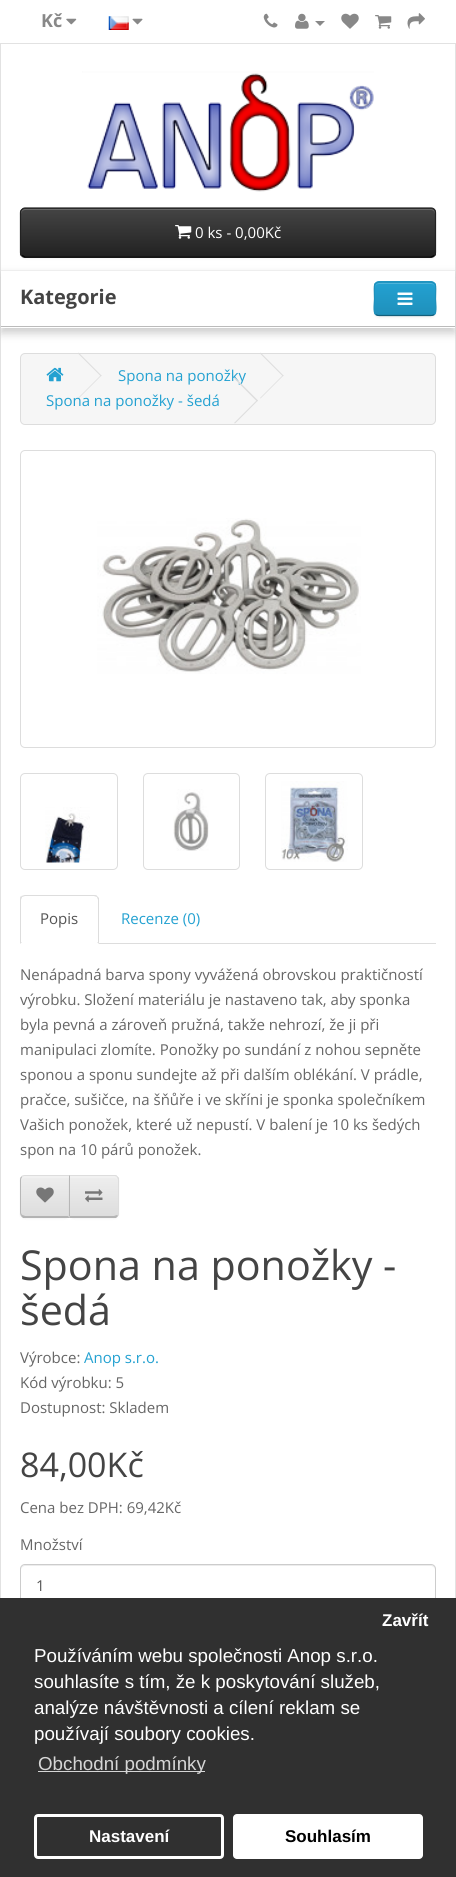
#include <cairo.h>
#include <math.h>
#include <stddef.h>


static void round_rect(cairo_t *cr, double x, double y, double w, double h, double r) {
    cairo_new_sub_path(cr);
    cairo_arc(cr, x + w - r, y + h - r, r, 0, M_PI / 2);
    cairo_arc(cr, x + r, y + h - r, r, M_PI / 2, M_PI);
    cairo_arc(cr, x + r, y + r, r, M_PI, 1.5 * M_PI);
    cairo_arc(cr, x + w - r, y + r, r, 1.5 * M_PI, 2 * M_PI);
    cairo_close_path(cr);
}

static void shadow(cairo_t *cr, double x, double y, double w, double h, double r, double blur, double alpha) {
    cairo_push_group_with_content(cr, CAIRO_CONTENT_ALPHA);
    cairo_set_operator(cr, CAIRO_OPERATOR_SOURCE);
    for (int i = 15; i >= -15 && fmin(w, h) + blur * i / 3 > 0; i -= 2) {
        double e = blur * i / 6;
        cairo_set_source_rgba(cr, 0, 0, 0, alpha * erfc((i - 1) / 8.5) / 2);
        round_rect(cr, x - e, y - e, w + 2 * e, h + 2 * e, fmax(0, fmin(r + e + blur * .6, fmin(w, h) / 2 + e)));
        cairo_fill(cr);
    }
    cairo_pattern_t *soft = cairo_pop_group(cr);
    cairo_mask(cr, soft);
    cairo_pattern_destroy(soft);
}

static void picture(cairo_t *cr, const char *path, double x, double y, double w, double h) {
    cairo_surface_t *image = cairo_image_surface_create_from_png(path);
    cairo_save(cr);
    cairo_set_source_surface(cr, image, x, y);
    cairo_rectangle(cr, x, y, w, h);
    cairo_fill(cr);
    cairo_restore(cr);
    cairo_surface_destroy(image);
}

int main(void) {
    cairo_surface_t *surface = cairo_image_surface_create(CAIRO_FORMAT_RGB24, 456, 1877);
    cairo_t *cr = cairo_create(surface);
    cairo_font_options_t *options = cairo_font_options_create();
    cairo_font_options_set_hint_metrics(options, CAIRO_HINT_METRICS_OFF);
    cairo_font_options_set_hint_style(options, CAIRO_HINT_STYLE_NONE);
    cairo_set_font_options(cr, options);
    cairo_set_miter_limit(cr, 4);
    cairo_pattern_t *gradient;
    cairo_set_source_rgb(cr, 1, 1, 1);
    cairo_paint(cr);
    cairo_set_source_rgb(cr, 0.886, 0.886, 0.886);
    cairo_rectangle(cr, 0, 43, 456, 1);
    cairo_fill(cr);
    cairo_select_font_face(cr, "Open Sans", CAIRO_FONT_SLANT_NORMAL, CAIRO_FONT_WEIGHT_BOLD);
    cairo_set_font_size(cr, 18);
    cairo_set_source_rgb(cr, 0.533, 0.533, 0.533);
    cairo_move_to(cr, 41, 27);
    cairo_show_text(cr, "Kč");
    picture(cr, "img1.png", 66, 18, 11, 7);
    picture(cr, "img2.png", 108, 16, 21, 14);
    picture(cr, "img3.png", 132, 18, 11, 7);
    picture(cr, "img4.png", 263, 13, 15, 15);
    picture(cr, "img5.png", 295, 13, 14, 16);
    cairo_new_path(cr);
    cairo_move_to(cr, 315, 21);
    cairo_line_to(cr, 325, 21);
    cairo_line_to(cr, 320, 26);
    cairo_close_path(cr);
    cairo_fill(cr);
    picture(cr, "img6.png", 341, 13, 18, 16);
    picture(cr, "img7.png", 375, 15, 17, 14);
    picture(cr, "img8.png", 407, 13, 18, 16);
    cairo_set_source_rgb(cr, 0.886, 0.886, 0.886);
    cairo_rectangle(cr, 455, 44, 1, 1554);
    cairo_fill(cr);
    cairo_rectangle(cr, 0, 44, 1, 1554);
    cairo_fill(cr);
    picture(cr, "img9.png", 82, 71, 292, 121);
    cairo_set_source_rgb(cr, 0, 0, 0);
    shadow(cr, 20, 209, 416, 50, 5, 1, 0.05);
    cairo_set_source_rgb(cr, 0.212, 0.212, 0.212);
    round_rect(cr, 20, 208, 416, 50, 5);
    cairo_fill(cr);
    cairo_save(cr);
    round_rect(cr, 20, 208, 416, 50, 5);
    cairo_clip(cr);
    gradient = cairo_pattern_create_linear(228, 209, 228, 256);
    cairo_pattern_add_color_stop_rgba(gradient, 0, 0.267, 0.267, 0.267, 1);
    cairo_pattern_add_color_stop_rgba(gradient, 1, 0.133, 0.133, 0.133, 1);
    cairo_set_source(cr, gradient);
    cairo_pattern_destroy(gradient);
    cairo_rectangle(cr, 20, 209, 416, 47);
    cairo_fill(cr);
    cairo_restore(cr);
    cairo_set_source_rgb(cr, 0.412, 0.412, 0.412);
    cairo_new_path(cr);
    cairo_move_to(cr, 25, 210);
    cairo_line_to(cr, 431, 210);
    cairo_curve_to(cr, 433, 210, 435, 212, 435, 214);
    cairo_line_to(cr, 435, 213);
    cairo_curve_to(cr, 435, 211, 433, 209, 431, 209);
    cairo_line_to(cr, 25, 209);
    cairo_curve_to(cr, 23, 209, 21, 211, 21, 213);
    cairo_line_to(cr, 21, 214);
    cairo_curve_to(cr, 21, 212, 23, 210, 25, 210);
    cairo_close_path(cr);
    cairo_fill(cr);
    cairo_new_path(cr);
    cairo_move_to(cr, 434.5, 255.5);
    cairo_line_to(cr, 431, 257);
    cairo_line_to(cr, 25, 257);
    cairo_line_to(cr, 22, 255.5);
    cairo_set_source_rgb(cr, 0, 0, 0);
    cairo_set_line_width(cr, 1.2);
    cairo_stroke(cr);
    cairo_new_path(cr);
    cairo_move_to(cr, 22, 255.5);
    cairo_curve_to(cr, 21, 255, 20.5, 253.5, 20.5, 252.5);
    cairo_line_to(cr, 20.5, 212.5);
    cairo_curve_to(cr, 20.5, 211.5, 21, 210, 22, 209.5);
    cairo_curve_to(cr, 22.5, 208.5, 24, 208, 25, 208);
    cairo_line_to(cr, 431, 208);
    cairo_curve_to(cr, 432.5, 208, 433.5, 208.5, 434.5, 209.5);
    cairo_curve_to(cr, 435, 210, 435.5, 211.5, 435.5, 212.5);
    cairo_line_to(cr, 435.5, 252.5);
    cairo_curve_to(cr, 435.5, 253.5, 435, 255, 434.5, 255.5);
    cairo_set_source_rgb(cr, 0.133, 0.133, 0.133);
    cairo_stroke(cr);
    picture(cr, "img10.png", 175, 225, 17, 14);
    cairo_select_font_face(cr, "Open Sans", CAIRO_FONT_SLANT_NORMAL, CAIRO_FONT_WEIGHT_NORMAL);
    cairo_set_font_size(cr, 15);
    cairo_set_source_rgb(cr, 1, 1, 1);
    cairo_move_to(cr, 195, 238);
    cairo_show_text(cr, "0 ks - 0,00Kč");
    cairo_save(cr);
    cairo_set_fill_rule(cr, CAIRO_FILL_RULE_EVEN_ODD);
    cairo_new_path(cr);
    cairo_move_to(cr, 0, 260);
    cairo_line_to(cr, 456, 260);
    cairo_line_to(cr, 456, 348);
    cairo_line_to(cr, 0, 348);
    cairo_close_path(cr);
    cairo_move_to(cr, 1, 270);
    cairo_line_to(cr, 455, 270);
    cairo_line_to(cr, 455, 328);
    cairo_line_to(cr, 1, 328);
    cairo_close_path(cr);
    cairo_clip(cr);
    cairo_set_source_rgb(cr, 0.8, 0.8, 0.8);
    shadow(cr, 1, 275, 454, 58, 0, 4.5, 1);
    cairo_restore(cr);
    cairo_set_source_rgb(cr, 0.933, 0.933, 0.933);
    cairo_rectangle(cr, 1, 270, 454, 1);
    cairo_fill(cr);
    cairo_set_source_rgb(cr, 0.733, 0.733, 0.733);
    cairo_rectangle(cr, 1, 326, 454, 1);
    cairo_fill(cr);
    cairo_select_font_face(cr, "Open Sans", CAIRO_FONT_SLANT_NORMAL, CAIRO_FONT_WEIGHT_BOLD);
    cairo_set_font_size(cr, 20);
    cairo_set_source_rgb(cr, 0.267, 0.267, 0.267);
    cairo_move_to(cr, 20, 304);
    cairo_show_text(cr, "Kategorie");
    cairo_set_source_rgb(cr, 0, 0, 0);
    shadow(cr, 374, 283, 62, 35, 5, 1, 0.05);
    cairo_set_source_rgb(cr, 0.133, 0.604, 0.784);
    round_rect(cr, 374, 281, 62, 35, 5);
    cairo_fill(cr);
    cairo_save(cr);
    round_rect(cr, 374, 281, 62, 35, 5);
    cairo_clip(cr);
    gradient = cairo_pattern_create_linear(405, 283, 405, 315);
    cairo_pattern_add_color_stop_rgba(gradient, 0, 0.137, 0.631, 0.82, 1);
    cairo_pattern_add_color_stop_rgba(gradient, 1, 0.122, 0.565, 0.733, 1);
    cairo_set_source(cr, gradient);
    cairo_pattern_destroy(gradient);
    cairo_rectangle(cr, 374, 283, 62, 32);
    cairo_fill(cr);
    cairo_restore(cr);
    cairo_set_source_rgb(cr, 0.31, 0.706, 0.855);
    cairo_new_path(cr);
    cairo_move_to(cr, 379, 284);
    cairo_line_to(cr, 431, 284);
    cairo_curve_to(cr, 433, 284, 435, 285, 435, 288);
    cairo_curve_to(cr, 435, 281, 427, 283, 422, 283);
    cairo_line_to(cr, 388, 283);
    cairo_curve_to(cr, 383, 283, 375, 281, 375, 288);
    cairo_curve_to(cr, 375, 285, 377, 284, 379, 284);
    cairo_close_path(cr);
    cairo_fill(cr);
    cairo_new_path(cr);
    cairo_move_to(cr, 434.5, 314.5);
    cairo_curve_to(cr, 433.5, 315, 432.5, 315.5, 431, 315.5);
    cairo_line_to(cr, 379, 315.5);
    cairo_curve_to(cr, 377.5, 315.5, 376.5, 315, 375.5, 314.5);
    cairo_set_source_rgb(cr, 0.078, 0.369, 0.478);
    cairo_stroke(cr);
    cairo_new_path(cr);
    cairo_move_to(cr, 375.5, 314.5);
    cairo_curve_to(cr, 373, 312, 374.5, 302, 374.5, 299);
    cairo_curve_to(cr, 374.5, 282, 371.5, 282, 387.5, 282);
    cairo_line_to(cr, 422.5, 282);
    cairo_curve_to(cr, 438.5, 282, 435.5, 282, 435.5, 299);
    cairo_curve_to(cr, 435.5, 302, 437, 312, 434.5, 314.5);
    cairo_set_source_rgb(cr, 0.122, 0.565, 0.733);
    cairo_stroke(cr);
    picture(cr, "img11.png", 397, 292, 16, 13);
    cairo_set_source_rgb(cr, 0.961, 0.961, 0.961);
    round_rect(cr, 20.5, 353.5, 415, 71, 4.5);
    cairo_fill_preserve(cr);
    cairo_set_source_rgb(cr, 0.867, 0.867, 0.867);
    cairo_set_line_width(cr, 1);
    cairo_stroke(cr);
    picture(cr, "img12.png", 46, 367, 18, 15);
    cairo_new_path(cr);
    cairo_move_to(cr, 78, 353.5);
    cairo_line_to(cr, 78.5, 352.5);
    cairo_line_to(cr, 101.5, 375.5);
    cairo_line_to(cr, 101, 376.5);
    cairo_close_path(cr);
    cairo_fill(cr);
    cairo_new_path(cr);
    cairo_move_to(cr, 78, 398);
    cairo_line_to(cr, 101, 375);
    cairo_line_to(cr, 101.5, 375.5);
    cairo_line_to(cr, 78.5, 398.5);
    cairo_close_path(cr);
    cairo_fill(cr);
    cairo_select_font_face(cr, "Open Sans", CAIRO_FONT_SLANT_NORMAL, CAIRO_FONT_WEIGHT_NORMAL);
    cairo_set_font_size(cr, 15);
    cairo_set_source_rgb(cr, 0.137, 0.631, 0.82);
    cairo_move_to(cr, 118, 381);
    cairo_show_text(cr, "Spona na ponožky");
    cairo_set_source_rgb(cr, 0.867, 0.867, 0.867);
    cairo_new_path(cr);
    cairo_move_to(cr, 260, 353.5);
    cairo_line_to(cr, 260.5, 352.5);
    cairo_line_to(cr, 283.5, 375.5);
    cairo_line_to(cr, 283, 376.5);
    cairo_close_path(cr);
    cairo_fill(cr);
    cairo_new_path(cr);
    cairo_move_to(cr, 260, 398);
    cairo_line_to(cr, 283, 375);
    cairo_line_to(cr, 283.5, 375.5);
    cairo_line_to(cr, 260.5, 398.5);
    cairo_close_path(cr);
    cairo_fill(cr);
    cairo_set_source_rgb(cr, 0.137, 0.631, 0.82);
    cairo_move_to(cr, 46, 406);
    cairo_show_text(cr, "Spona na ponožky - šedá");
    cairo_set_source_rgb(cr, 0.867, 0.867, 0.867);
    cairo_new_path(cr);
    cairo_move_to(cr, 234, 378.5);
    cairo_line_to(cr, 235, 377.5);
    cairo_line_to(cr, 258, 400.5);
    cairo_line_to(cr, 257, 401.5);
    cairo_close_path(cr);
    cairo_fill(cr);
    cairo_new_path(cr);
    cairo_move_to(cr, 234, 423);
    cairo_line_to(cr, 257, 400);
    cairo_line_to(cr, 258, 400.5);
    cairo_line_to(cr, 235, 423.5);
    cairo_close_path(cr);
    cairo_fill(cr);
    round_rect(cr, 20.5, 450.5, 415, 297, 4.5);
    cairo_stroke(cr);
    picture(cr, "img13.png", 97, 518, 264, 156);
    round_rect(cr, 20.5, 773.5, 97, 96, 4.5);
    cairo_stroke(cr);
    picture(cr, "img14.png", 45, 807, 45, 56);
    round_rect(cr, 143.5, 773.5, 96, 96, 4.5);
    cairo_stroke(cr);
    picture(cr, "img15.png", 173, 789, 36, 62);
    round_rect(cr, 265.5, 773.5, 97, 96, 4.5);
    cairo_stroke(cr);
    picture(cr, "img16.png", 281, 781, 67, 81);
    cairo_rectangle(cr, 99, 943, 337, 1);
    cairo_fill(cr);
    cairo_new_path(cr);
    cairo_move_to(cr, 25, 895);
    cairo_curve_to(cr, 24, 895, 22, 896, 21, 896);
    cairo_line_to(cr, 22, 897);
    cairo_line_to(cr, 25, 896);
    cairo_line_to(cr, 94, 896);
    cairo_line_to(cr, 97, 897);
    cairo_line_to(cr, 97, 896);
    cairo_curve_to(cr, 97, 895, 95, 895, 94, 895);
    cairo_close_path(cr);
    cairo_fill(cr);
    cairo_new_path(cr);
    cairo_move_to(cr, 97, 896);
    cairo_line_to(cr, 99, 898);
    cairo_line_to(cr, 99, 944);
    cairo_line_to(cr, 97, 942);
    cairo_line_to(cr, 98, 942);
    cairo_line_to(cr, 98, 900);
    cairo_curve_to(cr, 98, 899, 97, 898, 97, 897);
    cairo_close_path(cr);
    cairo_fill(cr);
    cairo_new_path(cr);
    cairo_move_to(cr, 20, 944);
    cairo_line_to(cr, 22, 942);
    cairo_line_to(cr, 21, 942);
    cairo_line_to(cr, 21, 900);
    cairo_curve_to(cr, 21, 899, 22, 898, 22, 897);
    cairo_line_to(cr, 21, 896);
    cairo_curve_to(cr, 20, 897, 20, 898, 20, 900);
    cairo_close_path(cr);
    cairo_fill(cr);
    cairo_set_source_rgb(cr, 0.333, 0.333, 0.333);
    cairo_move_to(cr, 40, 924);
    cairo_show_text(cr, "Popis");
    cairo_set_source_rgb(cr, 0.137, 0.631, 0.82);
    cairo_move_to(cr, 121, 924);
    cairo_show_text(cr, "Recenze (0)");
    cairo_set_source_rgb(cr, 0.4, 0.4, 0.4);
    cairo_move_to(cr, 20, 980);
    cairo_show_text(cr, "Nenápadná barva spony vyvážená obrovskou praktičností");
    cairo_move_to(cr, 20, 1005);
    cairo_show_text(cr, "výrobku. Složení materiálu je nastaveno tak, aby sponka");
    cairo_move_to(cr, 20, 1030);
    cairo_show_text(cr, "byla pevná a zároveň pružná, takže nehrozí, že ji při");
    cairo_move_to(cr, 20, 1055);
    cairo_show_text(cr, "manipulaci zlomíte. Ponožky po sundání z nohou sepněte");
    cairo_move_to(cr, 20, 1080);
    cairo_show_text(cr, "sponou a sponu sundejte až při dalším oblékání. V prádle,");
    cairo_move_to(cr, 20, 1105);
    cairo_show_text(cr, "pračce, sušičce, na šňůře i ve skříni je sponka společníkem");
    cairo_move_to(cr, 20, 1130);
    cairo_show_text(cr, "Vašich ponožek, které už nepustí. V balení je 10 ks šedých");
    cairo_move_to(cr, 20, 1155);
    cairo_show_text(cr, "spon na 10 párů ponožek.");
    cairo_set_source_rgb(cr, 0, 0, 0);
    shadow(cr, 20, 1176, 50, 43, 5, 1, 0.05);
    cairo_set_source_rgb(cr, 0.906, 0.906, 0.906);
    cairo_new_path(cr);
    cairo_move_to(cr, 25, 1175);
    cairo_line_to(cr, 70, 1175);
    cairo_line_to(cr, 70, 1218);
    cairo_line_to(cr, 25, 1218);
    cairo_curve_to(cr, 22, 1218, 20, 1216, 20, 1213);
    cairo_line_to(cr, 20, 1180);
    cairo_curve_to(cr, 20, 1177, 22, 1175, 25, 1175);
    cairo_close_path(cr);
    cairo_fill(cr);
    cairo_save(cr);
    cairo_new_path(cr);
    cairo_move_to(cr, 25, 1175);
    cairo_line_to(cr, 70, 1175);
    cairo_line_to(cr, 70, 1218);
    cairo_line_to(cr, 25, 1218);
    cairo_curve_to(cr, 22, 1218, 20, 1216, 20, 1213);
    cairo_line_to(cr, 20, 1180);
    cairo_curve_to(cr, 20, 1177, 22, 1175, 25, 1175);
    cairo_close_path(cr);
    cairo_clip(cr);
    gradient = cairo_pattern_create_linear(45, 1176, 45, 1216);
    cairo_pattern_add_color_stop_rgba(gradient, 0, 0.933, 0.933, 0.933, 1);
    cairo_pattern_add_color_stop_rgba(gradient, 1, 0.867, 0.867, 0.867, 1);
    cairo_set_source(cr, gradient);
    cairo_pattern_destroy(gradient);
    cairo_rectangle(cr, 20, 1176, 49, 40);
    cairo_fill(cr);
    cairo_restore(cr);
    cairo_set_source_rgb(cr, 0.945, 0.945, 0.945);
    cairo_new_path(cr);
    cairo_move_to(cr, 25, 1178);
    cairo_line_to(cr, 69, 1178);
    cairo_line_to(cr, 69, 1176);
    cairo_line_to(cr, 25, 1176);
    cairo_curve_to(cr, 23, 1176, 21, 1178, 21, 1180);
    cairo_line_to(cr, 21, 1181);
    cairo_curve_to(cr, 21, 1179, 23, 1178, 25, 1178);
    cairo_close_path(cr);
    cairo_fill(cr);
    cairo_set_source_rgb(cr, 0.867, 0.867, 0.867);
    cairo_new_path(cr);
    cairo_move_to(cr, 25, 1175);
    cairo_curve_to(cr, 24, 1175, 22, 1176, 21, 1176);
    cairo_line_to(cr, 22, 1177);
    cairo_curve_to(cr, 23, 1176, 24, 1176, 25, 1176);
    cairo_line_to(cr, 69, 1176);
    cairo_line_to(cr, 70, 1175);
    cairo_close_path(cr);
    cairo_fill(cr);
    cairo_set_source_rgb(cr, 0.702, 0.702, 0.702);
    cairo_new_path(cr);
    cairo_move_to(cr, 70, 1218);
    cairo_line_to(cr, 23, 1218);
    cairo_line_to(cr, 21, 1216);
    cairo_line_to(cr, 22, 1215);
    cairo_line_to(cr, 25, 1216);
    cairo_line_to(cr, 68, 1216);
    cairo_close_path(cr);
    cairo_fill(cr);
    cairo_set_source_rgb(cr, 0.718, 0.718, 0.718);
    cairo_new_path(cr);
    cairo_move_to(cr, 20, 1180);
    cairo_line_to(cr, 20, 1212);
    cairo_curve_to(cr, 20, 1213.5, 20.5, 1215, 21.5, 1216);
    cairo_line_to(cr, 22.5, 1215);
    cairo_curve_to(cr, 21.5, 1214.5, 21, 1213.5, 21, 1212);
    cairo_line_to(cr, 21, 1180);
    cairo_curve_to(cr, 21, 1179, 21.5, 1178, 22, 1177);
    cairo_line_to(cr, 21.5, 1176.5);
    cairo_curve_to(cr, 20.5, 1177, 20, 1178.5, 20, 1180);
    cairo_close_path(cr);
    cairo_fill(cr);
    picture(cr, "img17.png", 36, 1187, 18, 16);
    cairo_set_source_rgb(cr, 0, 0, 0);
    shadow(cr, 69, 1176, 50, 43, 5, 1, 0.05);
    cairo_set_source_rgb(cr, 0.906, 0.906, 0.906);
    cairo_new_path(cr);
    cairo_move_to(cr, 69, 1175);
    cairo_line_to(cr, 114, 1175);
    cairo_curve_to(cr, 117, 1175, 119, 1177, 119, 1180);
    cairo_line_to(cr, 119, 1213);
    cairo_curve_to(cr, 119, 1216, 117, 1218, 114, 1218);
    cairo_line_to(cr, 69, 1218);
    cairo_close_path(cr);
    cairo_fill(cr);
    cairo_save(cr);
    cairo_new_path(cr);
    cairo_move_to(cr, 69, 1175);
    cairo_line_to(cr, 114, 1175);
    cairo_curve_to(cr, 117, 1175, 119, 1177, 119, 1180);
    cairo_line_to(cr, 119, 1213);
    cairo_curve_to(cr, 119, 1216, 117, 1218, 114, 1218);
    cairo_line_to(cr, 69, 1218);
    cairo_close_path(cr);
    cairo_clip(cr);
    gradient = cairo_pattern_create_linear(94, 1176, 94, 1216);
    cairo_pattern_add_color_stop_rgba(gradient, 0, 0.933, 0.933, 0.933, 1);
    cairo_pattern_add_color_stop_rgba(gradient, 1, 0.867, 0.867, 0.867, 1);
    cairo_set_source(cr, gradient);
    cairo_pattern_destroy(gradient);
    cairo_rectangle(cr, 70, 1176, 49, 40);
    cairo_fill(cr);
    cairo_restore(cr);
    cairo_set_source_rgb(cr, 0.945, 0.945, 0.945);
    cairo_new_path(cr);
    cairo_move_to(cr, 70, 1178);
    cairo_line_to(cr, 114, 1178);
    cairo_curve_to(cr, 116, 1178, 118, 1179, 118, 1181);
    cairo_line_to(cr, 118, 1180);
    cairo_curve_to(cr, 118, 1178, 116, 1176, 114, 1176);
    cairo_line_to(cr, 70, 1176);
    cairo_close_path(cr);
    cairo_fill(cr);
    cairo_set_source_rgb(cr, 0.867, 0.867, 0.867);
    cairo_new_path(cr);
    cairo_move_to(cr, 69, 1175);
    cairo_line_to(cr, 70, 1176);
    cairo_line_to(cr, 114, 1176);
    cairo_curve_to(cr, 115, 1176, 116, 1176, 117, 1177);
    cairo_line_to(cr, 117, 1176);
    cairo_curve_to(cr, 117, 1175, 115, 1175, 114, 1175);
    cairo_close_path(cr);
    cairo_move_to(cr, 119, 1214);
    cairo_line_to(cr, 118, 1216);
    cairo_line_to(cr, 117, 1215);
    cairo_curve_to(cr, 117, 1215, 118, 1214, 118, 1212);
    cairo_line_to(cr, 118, 1180);
    cairo_curve_to(cr, 118, 1179, 117, 1178, 117, 1177);
    cairo_line_to(cr, 117, 1176);
    cairo_line_to(cr, 119, 1178);
    cairo_close_path(cr);
    cairo_fill(cr);
    cairo_set_source_rgb(cr, 0.702, 0.702, 0.702);
    cairo_new_path(cr);
    cairo_move_to(cr, 69, 1218);
    cairo_line_to(cr, 70, 1216);
    cairo_line_to(cr, 114, 1216);
    cairo_line_to(cr, 117, 1215);
    cairo_line_to(cr, 118, 1216);
    cairo_line_to(cr, 116, 1218);
    cairo_close_path(cr);
    cairo_fill(cr);
    cairo_set_source_rgb(cr, 0.718, 0.718, 0.718);
    cairo_new_path(cr);
    cairo_move_to(cr, 69, 1175);
    cairo_line_to(cr, 69, 1217);
    cairo_line_to(cr, 70, 1216);
    cairo_line_to(cr, 70, 1176);
    cairo_close_path(cr);
    cairo_fill(cr);
    picture(cr, "img18.png", 85, 1189, 18, 14);
    cairo_set_font_size(cr, 41.25);
    cairo_set_source_rgb(cr, 0.267, 0.267, 0.267);
    cairo_move_to(cr, 20, 1280);
    cairo_show_text(cr, "Spona na ponožky -");
    cairo_move_to(cr, 20, 1325);
    cairo_show_text(cr, "šedá");
    cairo_set_font_size(cr, 15);
    cairo_set_source_rgb(cr, 0.4, 0.4, 0.4);
    cairo_move_to(cr, 20, 1363);
    cairo_show_text(cr, "Výrobce:");
    cairo_set_source_rgb(cr, 0.137, 0.631, 0.82);
    cairo_move_to(cr, 84, 1363);
    cairo_show_text(cr, "Anop s.r.o.");
    cairo_set_source_rgb(cr, 0.4, 0.4, 0.4);
    cairo_move_to(cr, 20, 1388);
    cairo_show_text(cr, "Kód výrobku: 5");
    cairo_move_to(cr, 20, 1413);
    cairo_show_text(cr, "Dostupnost: Skladem");
    cairo_set_font_size(cr, 34);
    cairo_set_source_rgb(cr, 0.267, 0.267, 0.267);
    cairo_move_to(cr, 20, 1477);
    cairo_show_text(cr, "84,00Kč");
    cairo_set_font_size(cr, 15);
    cairo_set_source_rgb(cr, 0.4, 0.4, 0.4);
    cairo_move_to(cr, 20, 1513);
    cairo_show_text(cr, "Cena bez DPH: 69,42Kč");
    cairo_move_to(cr, 20, 1550);
    cairo_show_text(cr, "Množství");
    cairo_set_source_rgb(cr, 0.925, 0.925, 0.925);
    cairo_new_path(cr);
    cairo_move_to(cr, 25, 1566);
    cairo_line_to(cr, 431, 1566);
    cairo_curve_to(cr, 433, 1566, 435, 1568, 435, 1570);
    cairo_line_to(cr, 435, 1569);
    cairo_curve_to(cr, 435, 1567, 433, 1565, 431, 1565);
    cairo_line_to(cr, 25, 1565);
    cairo_curve_to(cr, 23, 1565, 21, 1567, 21, 1569);
    cairo_line_to(cr, 21, 1570);
    cairo_curve_to(cr, 21, 1568, 23, 1566, 25, 1566);
    cairo_close_path(cr);
    cairo_fill(cr);
    round_rect(cr, 20.5, 1564.5, 415, 41, 4.5);
    cairo_set_source_rgb(cr, 0.8, 0.8, 0.8);
    cairo_stroke(cr);
    cairo_set_source_rgb(cr, 0.333, 0.333, 0.333);
    cairo_move_to(cr, 36, 1591);
    cairo_show_text(cr, "1");
    cairo_set_source_rgb(cr, 0.188, 0.188, 0.188);
    cairo_rectangle(cr, 0, 1598, 456, 279);
    cairo_fill(cr);
    cairo_select_font_face(cr, "Liberation Sans", CAIRO_FONT_SLANT_NORMAL, CAIRO_FONT_WEIGHT_BOLD);
    cairo_set_font_size(cr, 17);
    cairo_set_source_rgb(cr, 1, 1, 1);
    cairo_move_to(cr, 382, 1626);
    cairo_show_text(cr, "Zavřít");
    round_rect(cr, 35.5, 1815.5, 187, 42, 2.5);
    cairo_set_line_width(cr, 3);
    cairo_stroke(cr);
    cairo_move_to(cr, 89, 1842);
    cairo_show_text(cr, "Nastavení");
    round_rect(cr, 233, 1814, 190, 45, 4);
    cairo_fill(cr);
    cairo_set_source_rgb(cr, 0, 0, 0);
    cairo_move_to(cr, 285, 1842);
    cairo_show_text(cr, "Souhlasím");
    cairo_select_font_face(cr, "Liberation Sans", CAIRO_FONT_SLANT_NORMAL, CAIRO_FONT_WEIGHT_NORMAL);
    cairo_set_font_size(cr, 18.75);
    cairo_set_source_rgb(cr, 1, 1, 1);
    cairo_move_to(cr, 34, 1662);
    cairo_show_text(cr, "Používáním webu společnosti Anop s.r.o.");
    cairo_move_to(cr, 34, 1688);
    cairo_show_text(cr, "souhlasíte s tím, že k poskytování služeb,");
    cairo_move_to(cr, 34, 1714);
    cairo_show_text(cr, "analýze návštěvnosti a cílení reklam se");
    cairo_move_to(cr, 34, 1740);
    cairo_show_text(cr, "používají soubory cookies.");
    cairo_set_source_rgb(cr, 0.839, 0.839, 0.839);
    cairo_rectangle(cr, 38, 1771, 167, 1);
    cairo_fill(cr);
    cairo_move_to(cr, 38, 1770);
    cairo_show_text(cr, "Obchodní podmínky");
    cairo_surface_write_to_png(surface, "page.png");
    cairo_font_options_destroy(options);
    cairo_destroy(cr);
    cairo_surface_destroy(surface);
    return 0;
}
